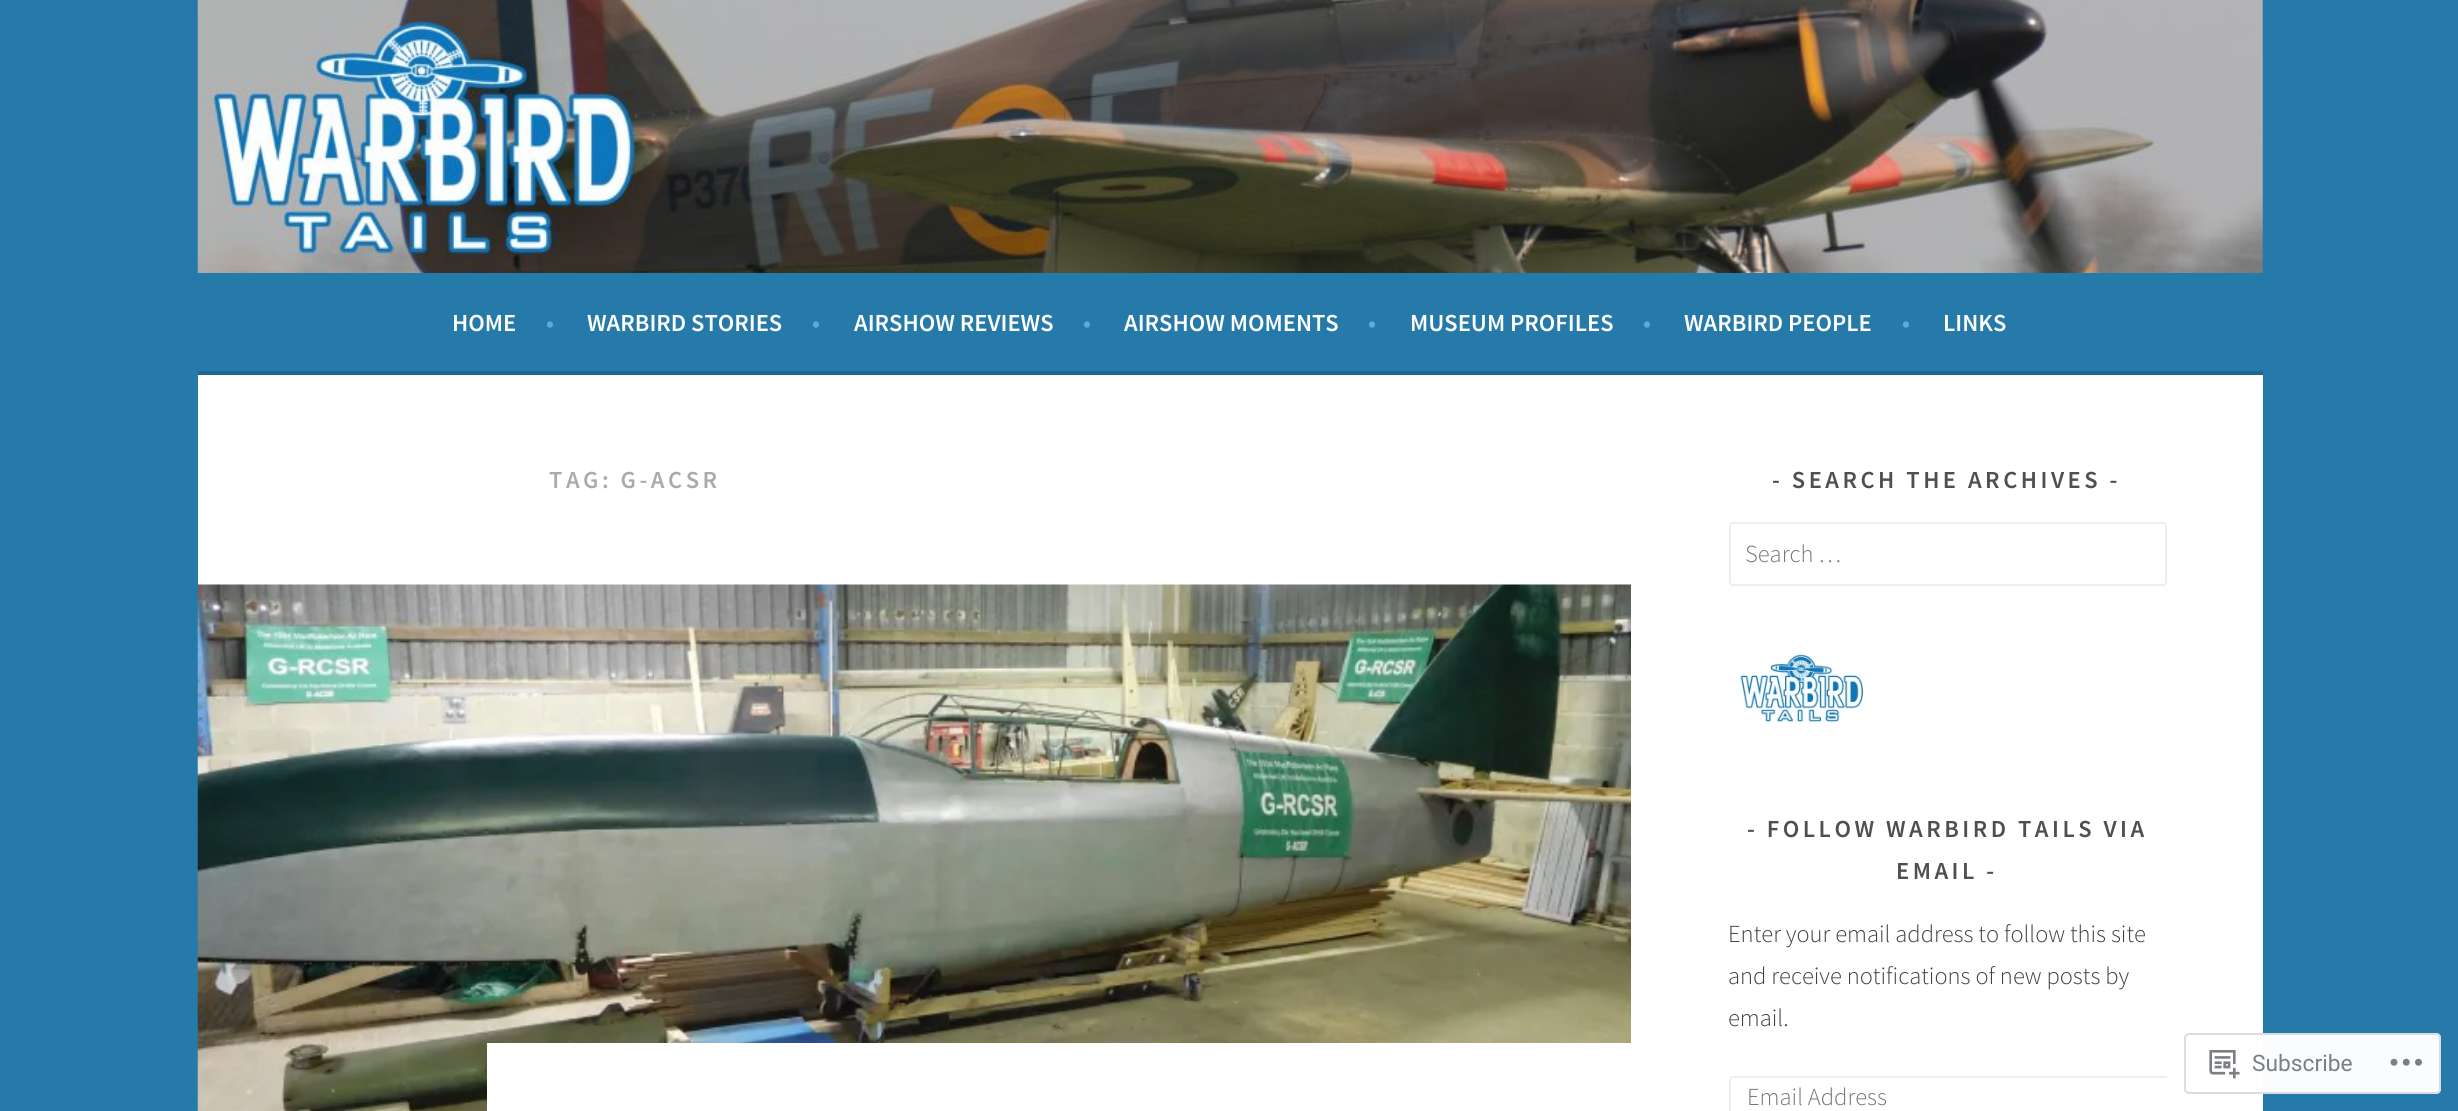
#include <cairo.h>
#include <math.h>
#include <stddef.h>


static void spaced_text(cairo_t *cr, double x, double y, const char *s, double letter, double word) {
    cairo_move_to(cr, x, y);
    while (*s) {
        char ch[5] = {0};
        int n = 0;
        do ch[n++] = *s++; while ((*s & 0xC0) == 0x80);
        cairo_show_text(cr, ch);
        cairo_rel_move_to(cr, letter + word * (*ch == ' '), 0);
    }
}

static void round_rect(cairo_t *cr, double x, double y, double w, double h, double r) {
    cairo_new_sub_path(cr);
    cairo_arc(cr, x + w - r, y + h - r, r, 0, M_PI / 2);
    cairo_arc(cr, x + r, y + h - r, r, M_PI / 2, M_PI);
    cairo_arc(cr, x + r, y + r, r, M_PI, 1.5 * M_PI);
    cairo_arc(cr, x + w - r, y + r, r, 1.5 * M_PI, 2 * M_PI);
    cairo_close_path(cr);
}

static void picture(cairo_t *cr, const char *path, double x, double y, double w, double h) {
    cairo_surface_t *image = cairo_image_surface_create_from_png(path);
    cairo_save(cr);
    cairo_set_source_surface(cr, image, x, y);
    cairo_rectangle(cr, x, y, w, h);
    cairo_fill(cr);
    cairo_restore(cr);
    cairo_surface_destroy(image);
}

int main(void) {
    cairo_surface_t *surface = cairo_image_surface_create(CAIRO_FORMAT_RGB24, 2458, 1111);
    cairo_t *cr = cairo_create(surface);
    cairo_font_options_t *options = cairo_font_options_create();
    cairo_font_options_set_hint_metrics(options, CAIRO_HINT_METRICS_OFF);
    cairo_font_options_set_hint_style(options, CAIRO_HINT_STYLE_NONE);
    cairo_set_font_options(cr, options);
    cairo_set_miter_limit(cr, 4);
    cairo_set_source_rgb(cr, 0.149, 0.478, 0.667);
    cairo_paint(cr);
    picture(cr, "img1.png", 197, 0, 2066, 273);
    cairo_set_source_rgb(cr, 0.125, 0.408, 0.569);
    cairo_rectangle(cr, 198, 371, 2065, 4);
    cairo_fill(cr);
    cairo_select_font_face(cr, "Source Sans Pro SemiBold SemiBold", CAIRO_FONT_SLANT_NORMAL, CAIRO_FONT_WEIGHT_NORMAL);
    cairo_set_font_size(cr, 24.5);
    cairo_set_source_rgb(cr, 1, 1, 1);
    cairo_move_to(cr, 452, 331);
    cairo_show_text(cr, "HOME");
    cairo_set_source_rgb(cr, 0.361, 0.675, 0.855);
    cairo_move_to(cr, 546, 331);
    cairo_show_text(cr, "•");
    cairo_set_source_rgb(cr, 1, 1, 1);
    cairo_move_to(cr, 587, 331);
    cairo_show_text(cr, "WARBIRD STORIES");
    cairo_set_source_rgb(cr, 0.361, 0.675, 0.855);
    cairo_move_to(cr, 812, 331);
    cairo_show_text(cr, "•");
    cairo_set_source_rgb(cr, 1, 1, 1);
    cairo_move_to(cr, 854, 331);
    cairo_show_text(cr, "AIRSHOW REVIEWS");
    cairo_set_source_rgb(cr, 0.361, 0.675, 0.855);
    cairo_move_to(cr, 1083, 331);
    cairo_show_text(cr, "•");
    cairo_set_source_rgb(cr, 1, 1, 1);
    cairo_move_to(cr, 1124, 331);
    cairo_show_text(cr, "AIRSHOW MOMENTS");
    cairo_set_source_rgb(cr, 0.361, 0.675, 0.855);
    cairo_move_to(cr, 1368, 331);
    cairo_show_text(cr, "•");
    cairo_set_source_rgb(cr, 1, 1, 1);
    cairo_move_to(cr, 1410, 331);
    cairo_show_text(cr, "MUSEUM PROFILES");
    cairo_set_source_rgb(cr, 0.361, 0.675, 0.855);
    cairo_move_to(cr, 1643, 331);
    cairo_show_text(cr, "•");
    cairo_set_source_rgb(cr, 1, 1, 1);
    cairo_move_to(cr, 1684, 331);
    cairo_show_text(cr, "WARBIRD PEOPLE");
    cairo_set_source_rgb(cr, 0.361, 0.675, 0.855);
    cairo_move_to(cr, 1902, 331);
    cairo_show_text(cr, "•");
    cairo_set_source_rgb(cr, 1, 1, 1);
    cairo_move_to(cr, 1943, 331);
    cairo_show_text(cr, "LINKS");
    cairo_rectangle(cr, 198, 375, 2065, 736);
    cairo_fill(cr);
    cairo_set_source_rgb(cr, 0.667, 0.667, 0.667);
    spaced_text(cr, 549, 488, "TAG: G-ACSR", 3.5, 0);
    picture(cr, "img2.png", 197, 584, 1434, 527);
    cairo_set_source_rgb(cr, 1, 1, 1);
    cairo_rectangle(cr, 487, 1043, 1144, 68);
    cairo_fill(cr);
    cairo_set_source_rgb(cr, 0.31, 0.31, 0.31);
    spaced_text(cr, 1772, 488, "- SEARCH THE ARCHIVES -", 3.5, 0);
    round_rect(cr, 1730, 523, 436, 62, 3);
    cairo_set_source_rgb(cr, 0.933, 0.933, 0.933);
    cairo_stroke(cr);
    cairo_select_font_face(cr, "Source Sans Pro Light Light", CAIRO_FONT_SLANT_NORMAL, CAIRO_FONT_WEIGHT_NORMAL);
    cairo_set_source_rgb(cr, 0.459, 0.459, 0.459);
    cairo_move_to(cr, 1745, 562);
    cairo_show_text(cr, "Search …");
    picture(cr, "img3.png", 1736, 653, 129, 70);
    cairo_select_font_face(cr, "Source Sans Pro SemiBold SemiBold", CAIRO_FONT_SLANT_NORMAL, CAIRO_FONT_WEIGHT_NORMAL);
    cairo_set_source_rgb(cr, 0.31, 0.31, 0.31);
    spaced_text(cr, 1747, 837, "- FOLLOW WARBIRD TAILS VIA", 3.5, 0);
    spaced_text(cr, 1896, 879, "EMAIL -", 3.5, 0);
    cairo_select_font_face(cr, "Source Sans Pro Light Light", CAIRO_FONT_SLANT_NORMAL, CAIRO_FONT_WEIGHT_NORMAL);
    cairo_set_source_rgb(cr, 0.251, 0.251, 0.251);
    cairo_move_to(cr, 1728, 942);
    cairo_show_text(cr, "Enter your email address to follow this site");
    cairo_move_to(cr, 1728, 984);
    cairo_show_text(cr, "and receive notifications of new posts by");
    cairo_move_to(cr, 1728, 1026);
    cairo_show_text(cr, "email.");
    cairo_save(cr);
    cairo_rectangle(cr, 1729, 459, 438, 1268);
    cairo_clip(cr);
    round_rect(cr, 1730, 1077, 451, 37, 3);
    cairo_set_source_rgb(cr, 0.933, 0.933, 0.933);
    cairo_stroke(cr);
    cairo_restore(cr);
    cairo_set_source_rgb(cr, 0.459, 0.459, 0.459);
    cairo_move_to(cr, 1747, 1105);
    cairo_show_text(cr, "Email Address");
    cairo_set_source_rgba(cr, 1, 1, 1, 0.98);
    round_rect(cr, 2184, 1033, 257, 61, 5);
    cairo_fill(cr);
    round_rect(cr, 2185, 1034, 255, 59, 4);
    cairo_set_source_rgba(cr, 0.863, 0.863, 0.871, 0.98);
    cairo_stroke(cr);
    picture(cr, "img4.png", 2209, 1050, 31, 29);
    cairo_select_font_face(cr, "Roboto", CAIRO_FONT_SLANT_NORMAL, CAIRO_FONT_WEIGHT_NORMAL);
    cairo_set_font_size(cr, 22.75);
    cairo_set_source_rgb(cr, 0.482, 0.498, 0.518);
    cairo_move_to(cr, 2252, 1071);
    cairo_show_text(cr, "Subscribe");
    picture(cr, "img5.png", 2390, 1058, 32, 8);
    cairo_surface_write_to_png(surface, "page.png");
    cairo_font_options_destroy(options);
    cairo_destroy(cr);
    cairo_surface_destroy(surface);
    return 0;
}
